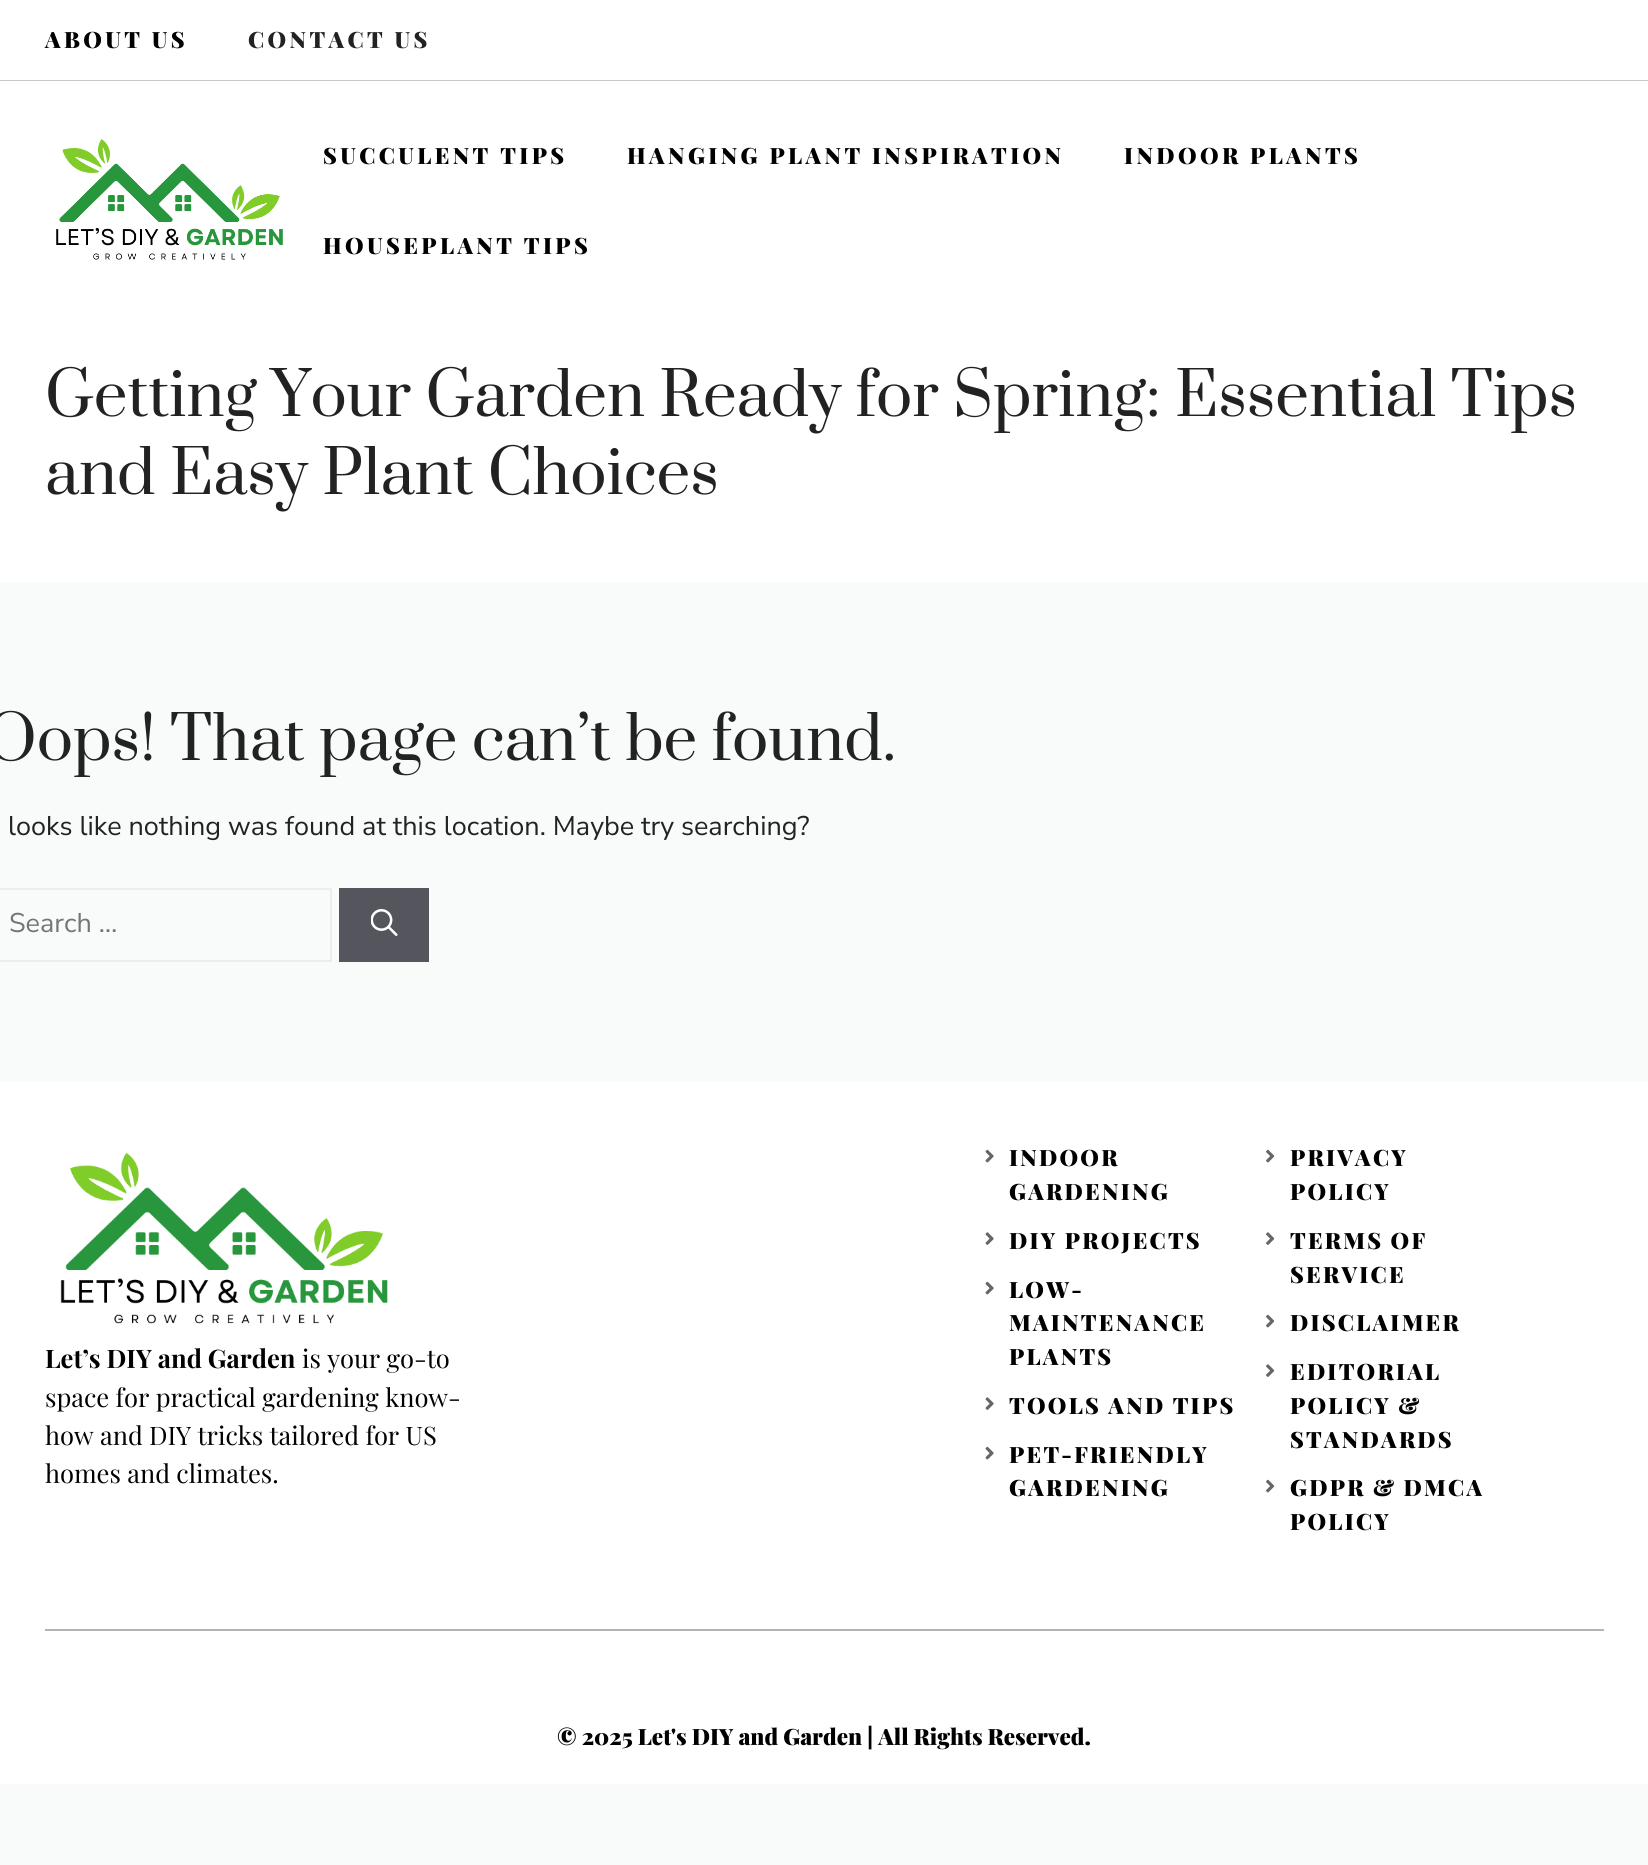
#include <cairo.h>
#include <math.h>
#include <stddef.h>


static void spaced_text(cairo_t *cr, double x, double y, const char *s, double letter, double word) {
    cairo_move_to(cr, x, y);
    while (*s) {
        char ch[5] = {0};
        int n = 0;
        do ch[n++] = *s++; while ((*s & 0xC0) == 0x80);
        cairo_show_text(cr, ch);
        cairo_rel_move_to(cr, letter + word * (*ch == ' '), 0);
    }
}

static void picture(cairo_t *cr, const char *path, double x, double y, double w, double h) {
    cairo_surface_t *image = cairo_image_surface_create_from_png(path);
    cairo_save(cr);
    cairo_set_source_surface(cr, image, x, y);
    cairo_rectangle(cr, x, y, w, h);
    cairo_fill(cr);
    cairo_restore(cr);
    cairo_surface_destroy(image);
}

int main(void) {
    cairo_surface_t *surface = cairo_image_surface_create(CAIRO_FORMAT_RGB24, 1648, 1865);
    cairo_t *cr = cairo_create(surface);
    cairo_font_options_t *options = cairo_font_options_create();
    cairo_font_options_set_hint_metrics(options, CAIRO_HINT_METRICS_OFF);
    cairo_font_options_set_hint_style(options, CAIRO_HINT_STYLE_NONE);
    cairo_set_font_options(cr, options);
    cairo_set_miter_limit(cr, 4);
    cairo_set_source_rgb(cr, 0.976, 0.98, 0.98);
    cairo_paint(cr);
    cairo_set_source_rgb(cr, 1, 1, 1);
    cairo_rectangle(cr, 0, 0, 1648, 80);
    cairo_fill(cr);
    cairo_set_source_rgb(cr, 0.78, 0.78, 0.78);
    cairo_rectangle(cr, 0, 80, 1648, 1);
    cairo_fill(cr);
    cairo_select_font_face(cr, "Playfair Display Black", CAIRO_FONT_SLANT_NORMAL, CAIRO_FONT_WEIGHT_NORMAL);
    cairo_set_font_size(cr, 22.5);
    cairo_set_source_rgb(cr, 0, 0, 0);
    spaced_text(cr, 45, 48, "ABOUT US", 3.4, 0);
    cairo_set_source_rgb(cr, 0.133, 0.133, 0.133);
    spaced_text(cr, 248, 48, "CONTACT US", 3.4, 0);
    cairo_set_source_rgb(cr, 1, 1, 1);
    cairo_rectangle(cr, 0, 81, 1648, 501);
    cairo_fill(cr);
    picture(cr, "img1.png", 56, 139, 227, 121);
    cairo_set_source_rgb(cr, 0, 0, 0);
    spaced_text(cr, 323, 164, "SUCCULENT TIPS", 3.4, 0);
    spaced_text(cr, 627, 164, "HANGING PLANT INSPIRATION", 3.4, 0);
    spaced_text(cr, 1124, 164, "INDOOR PLANTS", 3.4, 0);
    spaced_text(cr, 323, 254, "HOUSEPLANT TIPS", 3.4, 0);
    cairo_select_font_face(cr, "Prata", CAIRO_FONT_SLANT_NORMAL, CAIRO_FONT_WEIGHT_NORMAL);
    cairo_set_font_size(cr, 60);
    cairo_set_source_rgb(cr, 0.133, 0.133, 0.133);
    cairo_move_to(cr, 45, 416);
    cairo_show_text(cr, "Getting Your Garden Ready for Spring: Essential Tips");
    cairo_move_to(cr, 45, 494);
    cairo_show_text(cr, "and Easy Plant Choices");
    cairo_move_to(cr, -15, 760);
    cairo_show_text(cr, "Oops! That page can’t be found.");
    cairo_select_font_face(cr, "Nunito Sans", CAIRO_FONT_SLANT_NORMAL, CAIRO_FONT_WEIGHT_NORMAL);
    cairo_set_font_size(cr, 27);
    cairo_move_to(cr, 8, 835);
    cairo_show_text(cr, "looks like nothing was found at this location. Maybe try searching?");
    cairo_rectangle(cr, -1, 889, 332, 72);
    cairo_set_source_rgb(cr, 0.922, 0.929, 0.941);
    cairo_stroke(cr);
    cairo_set_source_rgb(cr, 0.459, 0.459, 0.459);
    cairo_move_to(cr, 9, 932);
    cairo_show_text(cr, "Search …");
    cairo_set_source_rgb(cr, 0.333, 0.333, 0.369);
    cairo_rectangle(cr, 339, 888, 90, 74);
    cairo_fill(cr);
    picture(cr, "img2.png", 371, 909, 27, 27);
    cairo_set_source_rgb(cr, 1, 1, 1);
    cairo_rectangle(cr, 0, 1082, 1648, 702);
    cairo_fill(cr);
    picture(cr, "img3.png", 60, 1153, 328, 171);
    cairo_select_font_face(cr, "Playfair Display", CAIRO_FONT_SLANT_NORMAL, CAIRO_FONT_WEIGHT_BOLD);
    cairo_set_font_size(cr, 25.5);
    cairo_set_source_rgb(cr, 0, 0, 0);
    cairo_move_to(cr, 45, 1368);
    cairo_show_text(cr, "Let’s DIY and Garden");
    cairo_select_font_face(cr, "Playfair Display", CAIRO_FONT_SLANT_NORMAL, CAIRO_FONT_WEIGHT_NORMAL);
    cairo_move_to(cr, 302, 1368);
    cairo_show_text(cr, "is your go-to");
    cairo_move_to(cr, 45, 1407);
    cairo_show_text(cr, "space for practical gardening know-");
    cairo_move_to(cr, 45, 1445);
    cairo_show_text(cr, "how and DIY tricks tailored for US");
    cairo_move_to(cr, 45, 1483);
    cairo_show_text(cr, "homes and climates.");
    picture(cr, "img4.png", 985, 1149, 9, 14);
    cairo_select_font_face(cr, "Playfair Display Black", CAIRO_FONT_SLANT_NORMAL, CAIRO_FONT_WEIGHT_NORMAL);
    cairo_set_font_size(cr, 22.5);
    spaced_text(cr, 1009, 1166, "INDOOR", 2.25, 0);
    spaced_text(cr, 1009, 1200, "GARDENING", 2.25, 0);
    picture(cr, "img5.png", 985, 1232, 9, 13);
    spaced_text(cr, 1009, 1249, "DIY PROJECTS", 2.25, 0);
    picture(cr, "img4.png", 985, 1281, 9, 14);
    spaced_text(cr, 1009, 1298, "LOW-", 2.25, 0);
    spaced_text(cr, 1009, 1331, "MAINTENANCE", 2.25, 0);
    spaced_text(cr, 1009, 1365, "PLANTS", 2.25, 0);
    picture(cr, "img5.png", 985, 1397, 9, 13);
    spaced_text(cr, 1009, 1414, "TOOLS AND TIPS", 2.25, 0);
    picture(cr, "img4.png", 985, 1446, 9, 14);
    spaced_text(cr, 1009, 1463, "PET-FRIENDLY", 2.25, 0);
    spaced_text(cr, 1009, 1496, "GARDENING", 2.25, 0);
    picture(cr, "img6.png", 1266, 1149, 9, 14);
    spaced_text(cr, 1290, 1166, "PRIVACY", 2.25, 0);
    spaced_text(cr, 1290, 1200, "POLICY", 2.25, 0);
    picture(cr, "img7.png", 1266, 1232, 9, 13);
    spaced_text(cr, 1290, 1249, "TERMS OF", 2.25, 0);
    spaced_text(cr, 1290, 1283, "SERVICE", 2.25, 0);
    picture(cr, "img6.png", 1266, 1314, 9, 14);
    spaced_text(cr, 1290, 1331, "DISCLAIMER", 2.25, 0);
    picture(cr, "img7.png", 1266, 1364, 9, 13);
    spaced_text(cr, 1290, 1380, "EDITORIAL", 2.25, 0);
    spaced_text(cr, 1290, 1414, "POLICY &", 2.25, 0);
    spaced_text(cr, 1290, 1448, "STANDARDS", 2.25, 0);
    picture(cr, "img6.png", 1266, 1479, 9, 14);
    spaced_text(cr, 1290, 1496, "GDPR & DMCA", 2.25, 0);
    spaced_text(cr, 1290, 1530, "POLICY", 2.25, 0);
    cairo_set_source_rgb(cr, 0.702, 0.702, 0.702);
    cairo_rectangle(cr, 45, 1629, 1559, 2);
    cairo_fill(cr);
    cairo_set_source_rgb(cr, 0, 0, 0);
    cairo_move_to(cr, 557, 1745);
    cairo_show_text(cr, "© 2025 Let's DIY and Garden | All Rights Reserved.");
    cairo_surface_write_to_png(surface, "page.png");
    cairo_font_options_destroy(options);
    cairo_destroy(cr);
    cairo_surface_destroy(surface);
    return 0;
}
